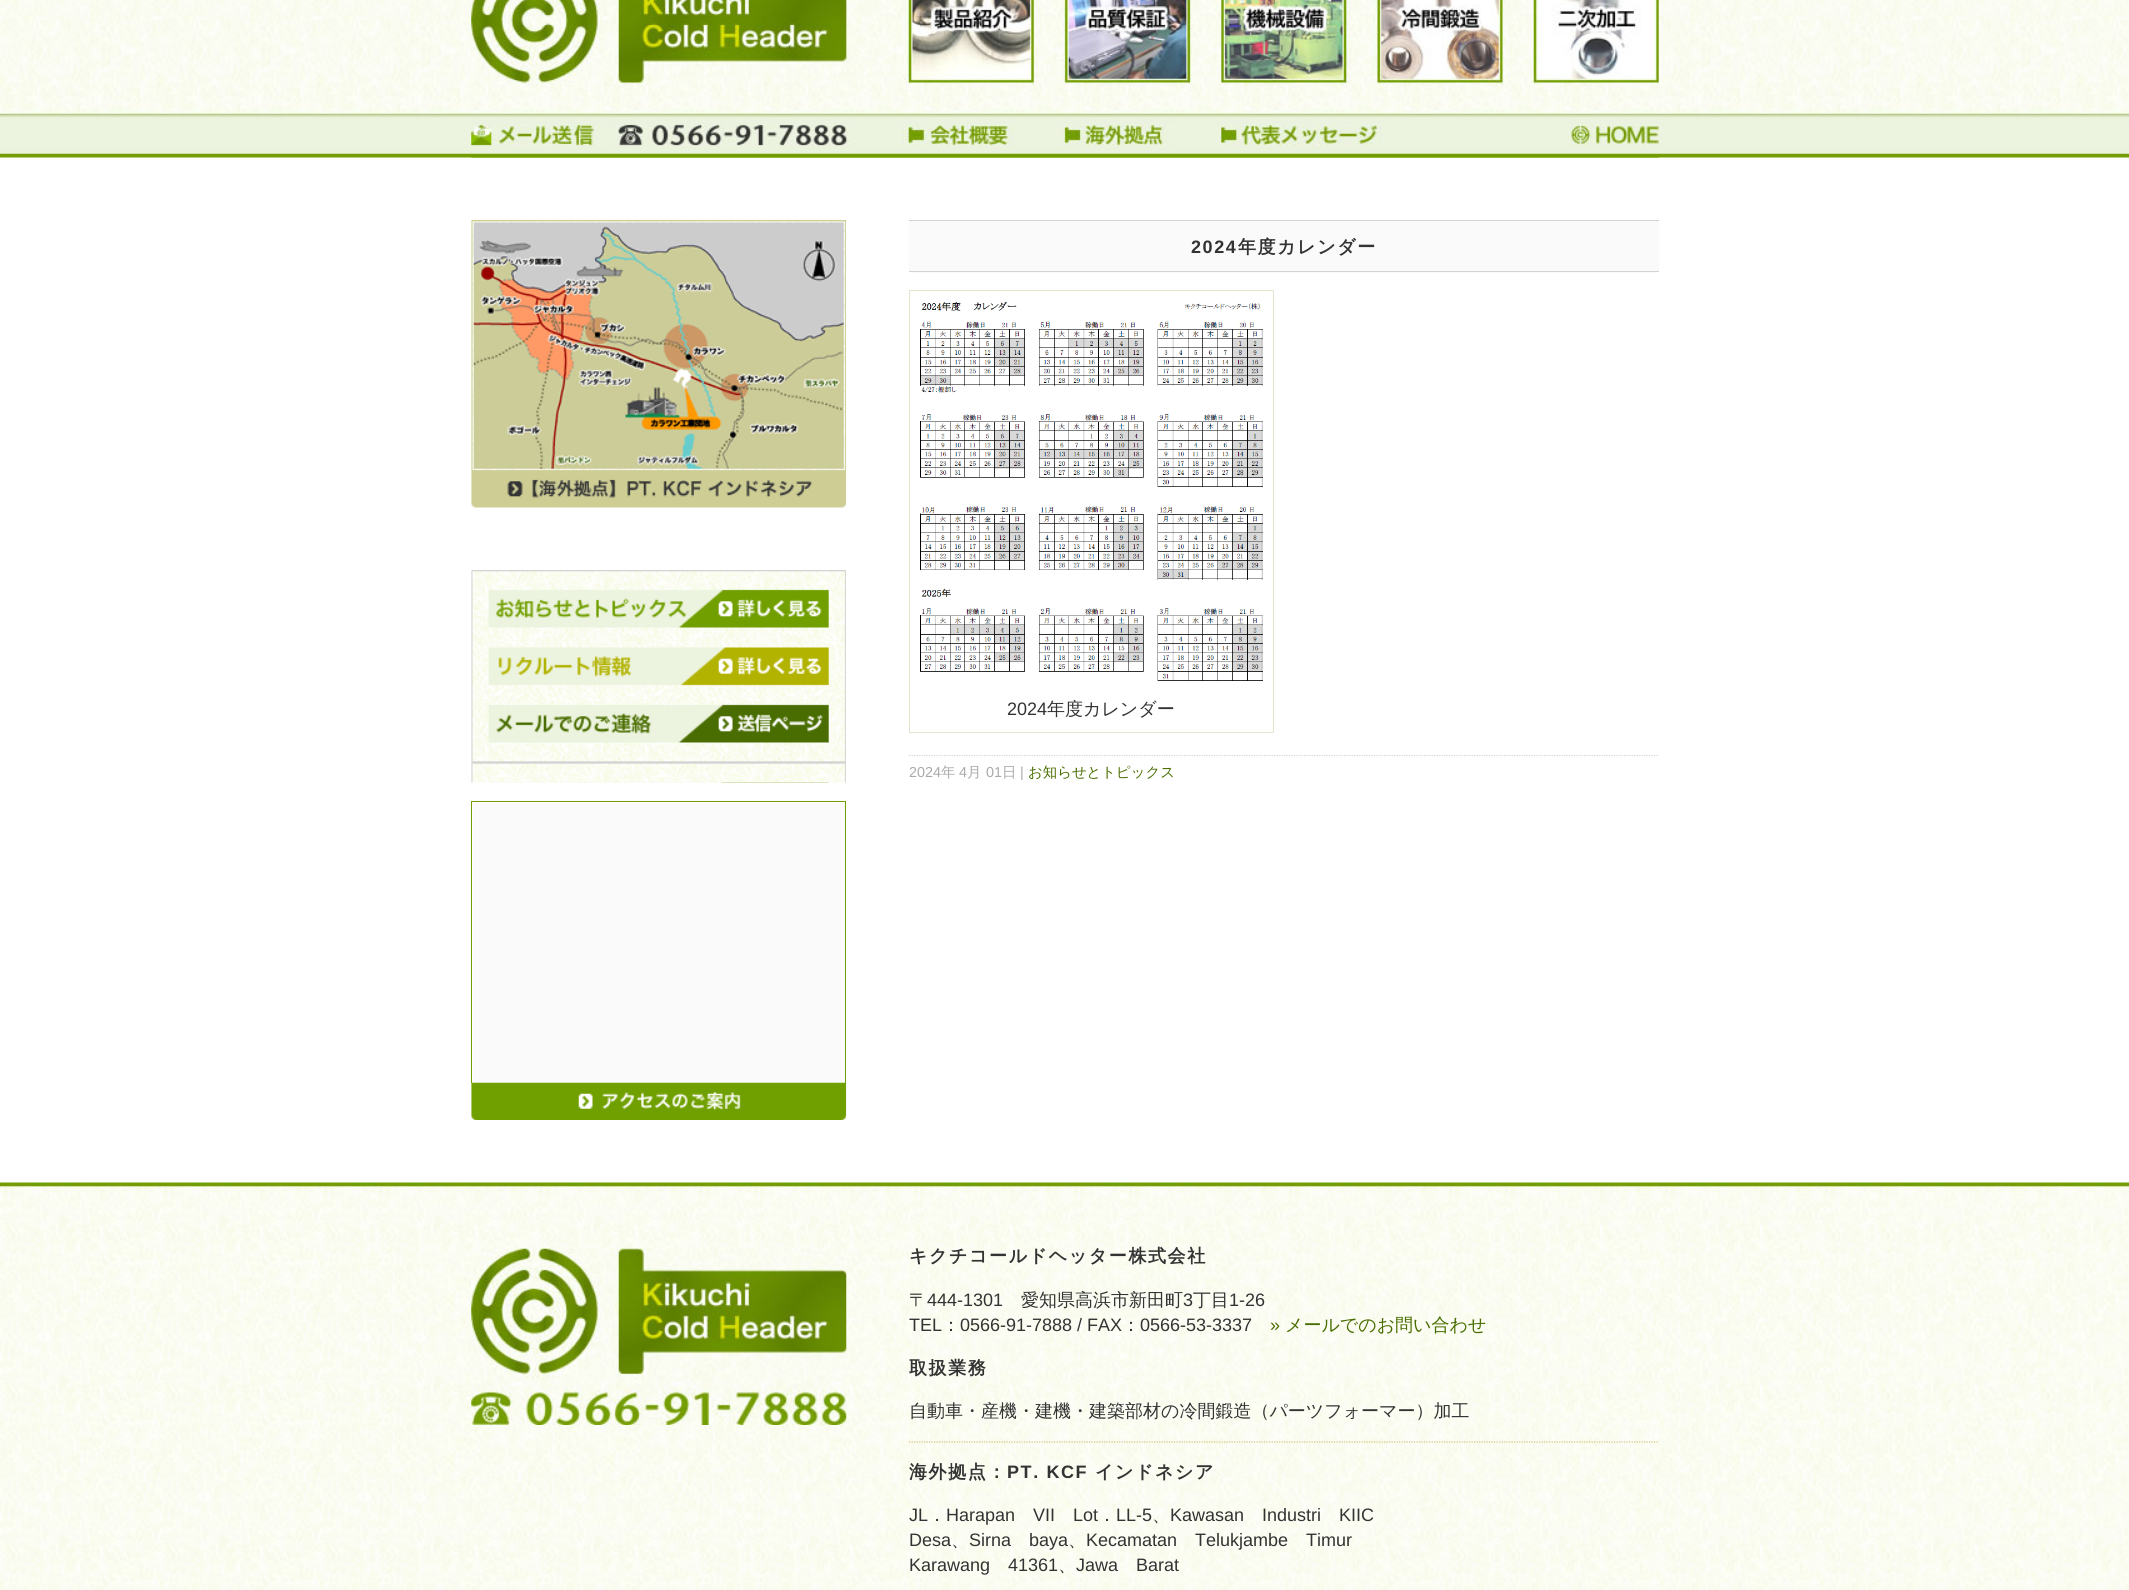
#include <cairo.h>
#include <math.h>
#include <stddef.h>


static void spaced_text(cairo_t *cr, double x, double y, const char *s, double letter, double word) {
    cairo_move_to(cr, x, y);
    while (*s) {
        char ch[5] = {0};
        int n = 0;
        do ch[n++] = *s++; while ((*s & 0xC0) == 0x80);
        cairo_show_text(cr, ch);
        cairo_rel_move_to(cr, letter + word * (*ch == ' '), 0);
    }
}

static void picture(cairo_t *cr, const char *path, double x, double y, double w, double h) {
    cairo_surface_t *image = cairo_image_surface_create_from_png(path);
    cairo_save(cr);
    cairo_set_source_surface(cr, image, x, y);
    cairo_rectangle(cr, x, y, w, h);
    cairo_fill(cr);
    cairo_restore(cr);
    cairo_surface_destroy(image);
}

int main(void) {
    cairo_surface_t *surface = cairo_image_surface_create(CAIRO_FORMAT_RGB24, 2129, 1590);
    cairo_t *cr = cairo_create(surface);
    cairo_font_options_t *options = cairo_font_options_create();
    cairo_font_options_set_hint_metrics(options, CAIRO_HINT_METRICS_OFF);
    cairo_font_options_set_hint_style(options, CAIRO_HINT_STYLE_NONE);
    cairo_set_font_options(cr, options);
    cairo_set_miter_limit(cr, 4);
    cairo_set_source_rgb(cr, 1, 1, 1);
    cairo_paint(cr);
    picture(cr, "img1.png", 0, 0, 2129, 158);
    picture(cr, "img2.png", 471, 0, 1188, 158);
    picture(cr, "img3.png", 471, 220, 376, 288);
    picture(cr, "img4.png", 471, 570, 375, 213);
    cairo_set_source_rgb(cr, 0.98, 0.98, 0.98);
    cairo_rectangle(cr, 473, 803, 372, 280);
    cairo_fill(cr);
    cairo_set_source_rgb(cr, 0.439, 0.627, 0);
    cairo_rectangle(cr, 471, 801, 375, 1);
    cairo_fill(cr);
    cairo_rectangle(cr, 845, 801, 1, 282);
    cairo_fill(cr);
    cairo_rectangle(cr, 471, 801, 1, 282);
    cairo_fill(cr);
    picture(cr, "img5.png", 471, 1082, 376, 38);
    cairo_set_source_rgb(cr, 0.98, 0.98, 0.98);
    cairo_rectangle(cr, 909, 221, 750, 52);
    cairo_fill(cr);
    cairo_set_source_rgb(cr, 0.827, 0.827, 0.827);
    cairo_rectangle(cr, 909, 220, 750, 1);
    cairo_fill(cr);
    cairo_rectangle(cr, 909, 271, 750, 1);
    cairo_fill(cr);
    cairo_select_font_face(cr, "Liberation Sans", CAIRO_FONT_SLANT_NORMAL, CAIRO_FONT_WEIGHT_BOLD);
    cairo_set_font_size(cr, 18);
    cairo_set_source_rgb(cr, 0.2, 0.2, 0.2);
    spaced_text(cr, 1191, 253, "2024", 1.6, 0);
    cairo_select_font_face(cr, "WenQuanYi Zen Hei", CAIRO_FONT_SLANT_NORMAL, CAIRO_FONT_WEIGHT_BOLD);
    spaced_text(cr, 1238, 253, "年度カレンダー", 1.6, 0);
    cairo_rectangle(cr, 909.5, 290.5, 364, 442);
    cairo_set_source_rgb(cr, 0.902, 0.894, 0.8);
    cairo_set_line_width(cr, 1);
    cairo_stroke(cr);
    picture(cr, "img6.png", 920, 301, 343, 380);
    cairo_select_font_face(cr, "Liberation Sans", CAIRO_FONT_SLANT_NORMAL, CAIRO_FONT_WEIGHT_NORMAL);
    cairo_set_source_rgb(cr, 0.2, 0.2, 0.2);
    cairo_move_to(cr, 1007, 715);
    cairo_show_text(cr, "2024");
    cairo_select_font_face(cr, "WenQuanYi Zen Hei Medium", CAIRO_FONT_SLANT_NORMAL, CAIRO_FONT_WEIGHT_NORMAL);
    cairo_move_to(cr, 1047, 715);
    cairo_show_text(cr, "年度カレンダー");
    cairo_new_path(cr);
    cairo_move_to(cr, 909, 755.5);
    cairo_line_to(cr, 1659, 755.5);
    cairo_set_source_rgb(cr, 0.827, 0.827, 0.827);
    cairo_set_line_width(cr, 1.2);
    cairo_set_dash(cr, (double[]){1.25, 1.25}, 2, 0);
    cairo_stroke(cr);
    cairo_select_font_face(cr, "Liberation Sans", CAIRO_FONT_SLANT_NORMAL, CAIRO_FONT_WEIGHT_NORMAL);
    cairo_set_font_size(cr, 14.4);
    cairo_set_source_rgb(cr, 0.667, 0.667, 0.667);
    cairo_move_to(cr, 909, 777);
    cairo_show_text(cr, "2024");
    cairo_select_font_face(cr, "WenQuanYi Zen Hei Medium", CAIRO_FONT_SLANT_NORMAL, CAIRO_FONT_WEIGHT_NORMAL);
    cairo_move_to(cr, 941, 777);
    cairo_show_text(cr, "年");
    cairo_select_font_face(cr, "Liberation Sans", CAIRO_FONT_SLANT_NORMAL, CAIRO_FONT_WEIGHT_NORMAL);
    cairo_move_to(cr, 959, 777);
    cairo_show_text(cr, "4");
    cairo_select_font_face(cr, "WenQuanYi Zen Hei Medium", CAIRO_FONT_SLANT_NORMAL, CAIRO_FONT_WEIGHT_NORMAL);
    cairo_move_to(cr, 967, 777);
    cairo_show_text(cr, "月");
    cairo_select_font_face(cr, "Liberation Sans", CAIRO_FONT_SLANT_NORMAL, CAIRO_FONT_WEIGHT_NORMAL);
    cairo_move_to(cr, 986, 777);
    cairo_show_text(cr, "01");
    cairo_select_font_face(cr, "WenQuanYi Zen Hei Medium", CAIRO_FONT_SLANT_NORMAL, CAIRO_FONT_WEIGHT_NORMAL);
    cairo_move_to(cr, 1002, 777);
    cairo_show_text(cr, "日");
    cairo_select_font_face(cr, "Liberation Sans", CAIRO_FONT_SLANT_NORMAL, CAIRO_FONT_WEIGHT_NORMAL);
    cairo_move_to(cr, 1020, 777);
    cairo_show_text(cr, "|");
    cairo_select_font_face(cr, "WenQuanYi Zen Hei Medium", CAIRO_FONT_SLANT_NORMAL, CAIRO_FONT_WEIGHT_NORMAL);
    cairo_set_source_rgb(cr, 0.286, 0.427, 0);
    cairo_move_to(cr, 1028, 777);
    cairo_show_text(cr, "お知らせとトピックス");
    picture(cr, "img7.png", 0, 1182, 2129, 408);
    picture(cr, "img8.png", 471, 1248, 376, 177);
    cairo_select_font_face(cr, "WenQuanYi Zen Hei", CAIRO_FONT_SLANT_NORMAL, CAIRO_FONT_WEIGHT_BOLD);
    cairo_set_font_size(cr, 18);
    cairo_set_source_rgb(cr, 0.2, 0.2, 0.2);
    spaced_text(cr, 909, 1262, "キクチコールドヘッター株式会社", 1.6, 0);
    cairo_select_font_face(cr, "WenQuanYi Zen Hei Medium", CAIRO_FONT_SLANT_NORMAL, CAIRO_FONT_WEIGHT_NORMAL);
    cairo_move_to(cr, 909, 1306);
    cairo_show_text(cr, "〒");
    cairo_select_font_face(cr, "Liberation Sans", CAIRO_FONT_SLANT_NORMAL, CAIRO_FONT_WEIGHT_NORMAL);
    cairo_move_to(cr, 927, 1306);
    cairo_show_text(cr, "444-1301");
    cairo_select_font_face(cr, "WenQuanYi Zen Hei Medium", CAIRO_FONT_SLANT_NORMAL, CAIRO_FONT_WEIGHT_NORMAL);
    cairo_move_to(cr, 1021, 1306);
    cairo_show_text(cr, "愛知県高浜市新田町");
    cairo_select_font_face(cr, "Liberation Sans", CAIRO_FONT_SLANT_NORMAL, CAIRO_FONT_WEIGHT_NORMAL);
    cairo_move_to(cr, 1183, 1306);
    cairo_show_text(cr, "3");
    cairo_select_font_face(cr, "WenQuanYi Zen Hei Medium", CAIRO_FONT_SLANT_NORMAL, CAIRO_FONT_WEIGHT_NORMAL);
    cairo_move_to(cr, 1193, 1306);
    cairo_show_text(cr, "丁目");
    cairo_select_font_face(cr, "Liberation Sans", CAIRO_FONT_SLANT_NORMAL, CAIRO_FONT_WEIGHT_NORMAL);
    cairo_move_to(cr, 1229, 1306);
    cairo_show_text(cr, "1-26");
    cairo_move_to(cr, 909, 1331);
    cairo_show_text(cr, "TEL");
    cairo_select_font_face(cr, "WenQuanYi Zen Hei Medium", CAIRO_FONT_SLANT_NORMAL, CAIRO_FONT_WEIGHT_NORMAL);
    cairo_move_to(cr, 942, 1331);
    cairo_show_text(cr, "：");
    cairo_select_font_face(cr, "Liberation Sans", CAIRO_FONT_SLANT_NORMAL, CAIRO_FONT_WEIGHT_NORMAL);
    cairo_move_to(cr, 960, 1331);
    cairo_show_text(cr, "0566-91-7888 / FAX");
    cairo_select_font_face(cr, "WenQuanYi Zen Hei Medium", CAIRO_FONT_SLANT_NORMAL, CAIRO_FONT_WEIGHT_NORMAL);
    cairo_move_to(cr, 1122, 1331);
    cairo_show_text(cr, "：");
    cairo_select_font_face(cr, "Liberation Sans", CAIRO_FONT_SLANT_NORMAL, CAIRO_FONT_WEIGHT_NORMAL);
    cairo_move_to(cr, 1140, 1331);
    cairo_show_text(cr, "0566-53-3337");
    cairo_set_source_rgb(cr, 0.286, 0.427, 0);
    cairo_move_to(cr, 1270, 1331);
    cairo_show_text(cr, "»");
    cairo_select_font_face(cr, "WenQuanYi Zen Hei Medium", CAIRO_FONT_SLANT_NORMAL, CAIRO_FONT_WEIGHT_NORMAL);
    cairo_move_to(cr, 1285, 1331);
    cairo_show_text(cr, "メールでのお問い合わせ");
    cairo_select_font_face(cr, "WenQuanYi Zen Hei", CAIRO_FONT_SLANT_NORMAL, CAIRO_FONT_WEIGHT_BOLD);
    cairo_set_source_rgb(cr, 0.2, 0.2, 0.2);
    spaced_text(cr, 909, 1374, "取扱業務", 1.6, 0);
    cairo_select_font_face(cr, "WenQuanYi Zen Hei Medium", CAIRO_FONT_SLANT_NORMAL, CAIRO_FONT_WEIGHT_NORMAL);
    cairo_move_to(cr, 909, 1417);
    cairo_show_text(cr, "自動車・産機・建機・建築部材の冷間鍛造（パーツフォーマー）加工");
    cairo_new_path(cr);
    cairo_move_to(cr, 909, 1442);
    cairo_line_to(cr, 1659, 1442);
    cairo_set_source_rgb(cr, 0.855, 0.753, 0.498);
    cairo_stroke(cr);
    cairo_select_font_face(cr, "WenQuanYi Zen Hei", CAIRO_FONT_SLANT_NORMAL, CAIRO_FONT_WEIGHT_BOLD);
    cairo_set_source_rgb(cr, 0.2, 0.2, 0.2);
    spaced_text(cr, 909, 1478, "海外拠点：", 1.6, 0);
    cairo_select_font_face(cr, "Liberation Sans", CAIRO_FONT_SLANT_NORMAL, CAIRO_FONT_WEIGHT_BOLD);
    spaced_text(cr, 1007, 1478, "PT. KCF", 1.6, 0);
    cairo_select_font_face(cr, "WenQuanYi Zen Hei", CAIRO_FONT_SLANT_NORMAL, CAIRO_FONT_WEIGHT_BOLD);
    spaced_text(cr, 1095, 1478, "インドネシア", 1.6, 0);
    cairo_select_font_face(cr, "Liberation Sans", CAIRO_FONT_SLANT_NORMAL, CAIRO_FONT_WEIGHT_NORMAL);
    cairo_move_to(cr, 909, 1521);
    cairo_show_text(cr, "JL");
    cairo_select_font_face(cr, "WenQuanYi Zen Hei Medium", CAIRO_FONT_SLANT_NORMAL, CAIRO_FONT_WEIGHT_NORMAL);
    cairo_move_to(cr, 928, 1521);
    cairo_show_text(cr, "．");
    cairo_select_font_face(cr, "Liberation Sans", CAIRO_FONT_SLANT_NORMAL, CAIRO_FONT_WEIGHT_NORMAL);
    cairo_move_to(cr, 946, 1521);
    cairo_show_text(cr, "Harapan");
    cairo_move_to(cr, 1033, 1521);
    cairo_show_text(cr, "VII");
    cairo_move_to(cr, 1073, 1521);
    cairo_show_text(cr, "Lot");
    cairo_select_font_face(cr, "WenQuanYi Zen Hei Medium", CAIRO_FONT_SLANT_NORMAL, CAIRO_FONT_WEIGHT_NORMAL);
    cairo_move_to(cr, 1098, 1521);
    cairo_show_text(cr, "．");
    cairo_select_font_face(cr, "Liberation Sans", CAIRO_FONT_SLANT_NORMAL, CAIRO_FONT_WEIGHT_NORMAL);
    cairo_move_to(cr, 1116, 1521);
    cairo_show_text(cr, "LL-5");
    cairo_select_font_face(cr, "WenQuanYi Zen Hei Medium", CAIRO_FONT_SLANT_NORMAL, CAIRO_FONT_WEIGHT_NORMAL);
    cairo_move_to(cr, 1152, 1521);
    cairo_show_text(cr, "、");
    cairo_select_font_face(cr, "Liberation Sans", CAIRO_FONT_SLANT_NORMAL, CAIRO_FONT_WEIGHT_NORMAL);
    cairo_move_to(cr, 1170, 1521);
    cairo_show_text(cr, "Kawasan");
    cairo_move_to(cr, 1262, 1521);
    cairo_show_text(cr, "Industri");
    cairo_move_to(cr, 1339, 1521);
    cairo_show_text(cr, "KIIC");
    cairo_move_to(cr, 909, 1546);
    cairo_show_text(cr, "Desa");
    cairo_select_font_face(cr, "WenQuanYi Zen Hei Medium", CAIRO_FONT_SLANT_NORMAL, CAIRO_FONT_WEIGHT_NORMAL);
    cairo_move_to(cr, 951, 1546);
    cairo_show_text(cr, "、");
    cairo_select_font_face(cr, "Liberation Sans", CAIRO_FONT_SLANT_NORMAL, CAIRO_FONT_WEIGHT_NORMAL);
    cairo_move_to(cr, 969, 1546);
    cairo_show_text(cr, "Sirna");
    cairo_move_to(cr, 1029, 1546);
    cairo_show_text(cr, "baya");
    cairo_select_font_face(cr, "WenQuanYi Zen Hei Medium", CAIRO_FONT_SLANT_NORMAL, CAIRO_FONT_WEIGHT_NORMAL);
    cairo_move_to(cr, 1068, 1546);
    cairo_show_text(cr, "、");
    cairo_select_font_face(cr, "Liberation Sans", CAIRO_FONT_SLANT_NORMAL, CAIRO_FONT_WEIGHT_NORMAL);
    cairo_move_to(cr, 1086, 1546);
    cairo_show_text(cr, "Kecamatan");
    cairo_move_to(cr, 1195, 1546);
    cairo_show_text(cr, "Telukjambe");
    cairo_move_to(cr, 1306, 1546);
    cairo_show_text(cr, "Timur");
    cairo_move_to(cr, 909, 1571);
    cairo_show_text(cr, "Karawang");
    cairo_move_to(cr, 1008, 1571);
    cairo_show_text(cr, "41361");
    cairo_select_font_face(cr, "WenQuanYi Zen Hei Medium", CAIRO_FONT_SLANT_NORMAL, CAIRO_FONT_WEIGHT_NORMAL);
    cairo_move_to(cr, 1058, 1571);
    cairo_show_text(cr, "、");
    cairo_select_font_face(cr, "Liberation Sans", CAIRO_FONT_SLANT_NORMAL, CAIRO_FONT_WEIGHT_NORMAL);
    cairo_move_to(cr, 1076, 1571);
    cairo_show_text(cr, "Jawa");
    cairo_move_to(cr, 1136, 1571);
    cairo_show_text(cr, "Barat");
    cairo_surface_write_to_png(surface, "page.png");
    cairo_font_options_destroy(options);
    cairo_destroy(cr);
    cairo_surface_destroy(surface);
    return 0;
}
